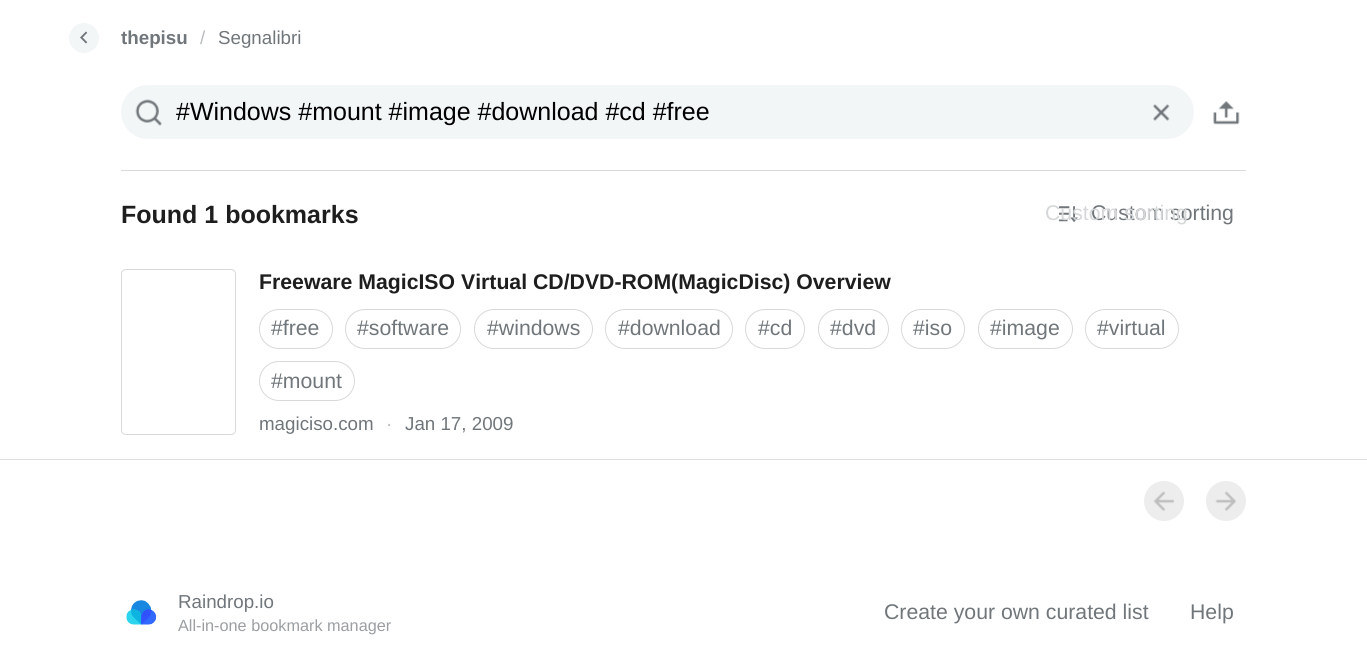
#include <cairo.h>
#include <math.h>
#include <stddef.h>


static void round_rect(cairo_t *cr, double x, double y, double w, double h, double r) {
    cairo_new_sub_path(cr);
    cairo_arc(cr, x + w - r, y + h - r, r, 0, M_PI / 2);
    cairo_arc(cr, x + r, y + h - r, r, M_PI / 2, M_PI);
    cairo_arc(cr, x + r, y + r, r, M_PI, 1.5 * M_PI);
    cairo_arc(cr, x + w - r, y + r, r, 1.5 * M_PI, 2 * M_PI);
    cairo_close_path(cr);
}

static void picture(cairo_t *cr, const char *path, double x, double y, double w, double h) {
    cairo_surface_t *image = cairo_image_surface_create_from_png(path);
    cairo_save(cr);
    cairo_set_source_surface(cr, image, x, y);
    cairo_rectangle(cr, x, y, w, h);
    cairo_fill(cr);
    cairo_restore(cr);
    cairo_surface_destroy(image);
}

int main(void) {
    cairo_surface_t *surface = cairo_image_surface_create(CAIRO_FORMAT_RGB24, 1367, 645);
    cairo_t *cr = cairo_create(surface);
    cairo_font_options_t *options = cairo_font_options_create();
    cairo_font_options_set_hint_metrics(options, CAIRO_HINT_METRICS_OFF);
    cairo_font_options_set_hint_style(options, CAIRO_HINT_STYLE_NONE);
    cairo_set_font_options(cr, options);
    cairo_set_miter_limit(cr, 4);
    cairo_set_source_rgb(cr, 1, 1, 1);
    cairo_paint(cr);
    cairo_set_source_rgb(cr, 0.953, 0.961, 0.965);
    cairo_arc(cr, 84, 38, 15, 0, 2 * M_PI);
    cairo_fill(cr);
    picture(cr, "img1.png", 80, 31, 8, 13);
    cairo_select_font_face(cr, "Liberation Sans", CAIRO_FONT_SLANT_NORMAL, CAIRO_FONT_WEIGHT_BOLD);
    cairo_set_font_size(cr, 18.75);
    cairo_set_source_rgb(cr, 0.439, 0.463, 0.478);
    cairo_move_to(cr, 121, 44);
    cairo_show_text(cr, "thepisu");
    cairo_select_font_face(cr, "Liberation Sans", CAIRO_FONT_SLANT_NORMAL, CAIRO_FONT_WEIGHT_NORMAL);
    cairo_set_source_rgb(cr, 0.722, 0.733, 0.741);
    cairo_move_to(cr, 200, 44);
    cairo_show_text(cr, "/");
    cairo_set_source_rgb(cr, 0.439, 0.463, 0.478);
    cairo_move_to(cr, 218, 44);
    cairo_show_text(cr, "Segnalibri");
    cairo_set_source_rgb(cr, 0.953, 0.961, 0.965);
    round_rect(cr, 121, 85, 1073, 54, 27);
    cairo_fill(cr);
    picture(cr, "img2.png", 135, 99, 27, 27);
    cairo_set_font_size(cr, 25);
    cairo_set_source_rgb(cr, 0, 0, 0);
    cairo_move_to(cr, 176, 120);
    cairo_show_text(cr, "#Windows #mount #image #download #cd #free");
    picture(cr, "img3.png", 1153, 104, 17, 17);
    picture(cr, "img4.png", 1213, 101, 27, 24);
    cairo_set_source_rgb(cr, 0.851, 0.851, 0.851);
    cairo_new_path(cr);
    cairo_move_to(cr, 121, 170);
    cairo_line_to(cr, 121, 245);
    cairo_line_to(cr, 121, 171);
    cairo_line_to(cr, 1246, 171);
    cairo_line_to(cr, 1246, 170);
    cairo_close_path(cr);
    cairo_fill(cr);
    cairo_select_font_face(cr, "Liberation Sans", CAIRO_FONT_SLANT_NORMAL, CAIRO_FONT_WEIGHT_BOLD);
    cairo_set_source_rgb(cr, 0.118, 0.118, 0.118);
    cairo_move_to(cr, 121, 223);
    cairo_show_text(cr, "Found 1 bookmarks");
    picture(cr, "img5.png", 1059, 206, 19, 17);
    cairo_select_font_face(cr, "Liberation Sans", CAIRO_FONT_SLANT_NORMAL, CAIRO_FONT_WEIGHT_NORMAL);
    cairo_set_font_size(cr, 21.25);
    cairo_set_source_rgb(cr, 0.439, 0.463, 0.478);
    cairo_move_to(cr, 1091, 220);
    cairo_show_text(cr, "Custom sorting");
    cairo_set_source_rgb(cr, 0.835, 0.843, 0.847);
    cairo_move_to(cr, 1045, 220);
    cairo_show_text(cr, "Custom sorting");
    round_rect(cr, 121.5, 269.5, 114, 165, 4.5);
    cairo_set_source_rgb(cr, 0.851, 0.851, 0.851);
    cairo_set_line_width(cr, 1);
    cairo_stroke(cr);
    cairo_select_font_face(cr, "Liberation Sans", CAIRO_FONT_SLANT_NORMAL, CAIRO_FONT_WEIGHT_BOLD);
    cairo_set_source_rgb(cr, 0.118, 0.118, 0.118);
    cairo_move_to(cr, 259, 289);
    cairo_show_text(cr, "Freeware MagicISO Virtual CD/DVD-ROM(MagicDisc) Overview");
    round_rect(cr, 259.5, 309.5, 73, 39, 19.5);
    cairo_set_source_rgb(cr, 0.851, 0.851, 0.851);
    cairo_stroke(cr);
    cairo_select_font_face(cr, "Liberation Sans", CAIRO_FONT_SLANT_NORMAL, CAIRO_FONT_WEIGHT_NORMAL);
    cairo_set_source_rgb(cr, 0.439, 0.463, 0.478);
    cairo_move_to(cr, 271, 335);
    cairo_show_text(cr, "#free");
    round_rect(cr, 345.5, 309.5, 115, 39, 19.5);
    cairo_set_source_rgb(cr, 0.851, 0.851, 0.851);
    cairo_stroke(cr);
    cairo_set_source_rgb(cr, 0.439, 0.463, 0.478);
    cairo_move_to(cr, 357, 335);
    cairo_show_text(cr, "#software");
    round_rect(cr, 474.5, 309.5, 118, 39, 19.5);
    cairo_set_source_rgb(cr, 0.851, 0.851, 0.851);
    cairo_stroke(cr);
    cairo_set_source_rgb(cr, 0.439, 0.463, 0.478);
    cairo_move_to(cr, 487, 335);
    cairo_show_text(cr, "#windows");
    round_rect(cr, 605.5, 309.5, 127, 39, 19.5);
    cairo_set_source_rgb(cr, 0.851, 0.851, 0.851);
    cairo_stroke(cr);
    cairo_set_source_rgb(cr, 0.439, 0.463, 0.478);
    cairo_move_to(cr, 618, 335);
    cairo_show_text(cr, "#download");
    round_rect(cr, 745.5, 309.5, 59, 39, 19.5);
    cairo_set_source_rgb(cr, 0.851, 0.851, 0.851);
    cairo_stroke(cr);
    cairo_set_source_rgb(cr, 0.439, 0.463, 0.478);
    cairo_move_to(cr, 758, 335);
    cairo_show_text(cr, "#cd");
    round_rect(cr, 818.5, 309.5, 70, 39, 19.5);
    cairo_set_source_rgb(cr, 0.851, 0.851, 0.851);
    cairo_stroke(cr);
    cairo_set_source_rgb(cr, 0.439, 0.463, 0.478);
    cairo_move_to(cr, 830, 335);
    cairo_show_text(cr, "#dvd");
    round_rect(cr, 901.5, 309.5, 63, 39, 19.5);
    cairo_set_source_rgb(cr, 0.851, 0.851, 0.851);
    cairo_stroke(cr);
    cairo_set_source_rgb(cr, 0.439, 0.463, 0.478);
    cairo_move_to(cr, 913, 335);
    cairo_show_text(cr, "#iso");
    round_rect(cr, 978.5, 309.5, 94, 39, 19.5);
    cairo_set_source_rgb(cr, 0.851, 0.851, 0.851);
    cairo_stroke(cr);
    cairo_set_source_rgb(cr, 0.439, 0.463, 0.478);
    cairo_move_to(cr, 990, 335);
    cairo_show_text(cr, "#image");
    round_rect(cr, 1085.5, 309.5, 93, 39, 19.5);
    cairo_set_source_rgb(cr, 0.851, 0.851, 0.851);
    cairo_stroke(cr);
    cairo_set_source_rgb(cr, 0.439, 0.463, 0.478);
    cairo_move_to(cr, 1097, 335);
    cairo_show_text(cr, "#virtual");
    round_rect(cr, 259.5, 361.5, 95, 39, 19.5);
    cairo_set_source_rgb(cr, 0.851, 0.851, 0.851);
    cairo_stroke(cr);
    cairo_set_source_rgb(cr, 0.439, 0.463, 0.478);
    cairo_move_to(cr, 271, 388);
    cairo_show_text(cr, "#mount");
    cairo_set_font_size(cr, 18.75);
    cairo_move_to(cr, 259, 430);
    cairo_show_text(cr, "magiciso.com");
    cairo_set_source_rgb(cr, 0.722, 0.733, 0.741);
    cairo_move_to(cr, 386, 430);
    cairo_show_text(cr, "·");
    cairo_set_source_rgb(cr, 0.439, 0.463, 0.478);
    cairo_move_to(cr, 405, 430);
    cairo_show_text(cr, "Jan 17, 2009");
    cairo_set_source_rgb(cr, 0.871, 0.871, 0.871);
    cairo_rectangle(cr, 0, 459, 1367, 1);
    cairo_fill(cr);
    cairo_set_source_rgb(cr, 0.929, 0.929, 0.929);
    cairo_arc(cr, 1164, 501, 20, 0, 2 * M_PI);
    cairo_fill(cr);
    picture(cr, "img6.png", 1153, 491, 21, 20);
    cairo_arc(cr, 1226, 501, 20, 0, 2 * M_PI);
    cairo_fill(cr);
    picture(cr, "img7.png", 1215, 491, 21, 20);
    picture(cr, "img8.png", 126, 600, 31, 25);
    cairo_set_source_rgb(cr, 0.439, 0.463, 0.478);
    cairo_move_to(cr, 178, 608);
    cairo_show_text(cr, "Raindrop.io");
    cairo_set_font_size(cr, 16.25);
    cairo_set_source_rgb(cr, 0.608, 0.624, 0.635);
    cairo_move_to(cr, 178, 631);
    cairo_show_text(cr, "All-in-one bookmark manager");
    cairo_set_font_size(cr, 21.25);
    cairo_set_source_rgb(cr, 0.439, 0.463, 0.478);
    cairo_move_to(cr, 884, 619);
    cairo_show_text(cr, "Create your own curated list");
    cairo_move_to(cr, 1190, 619);
    cairo_show_text(cr, "Help");
    cairo_surface_write_to_png(surface, "page.png");
    cairo_font_options_destroy(options);
    cairo_destroy(cr);
    cairo_surface_destroy(surface);
    return 0;
}
